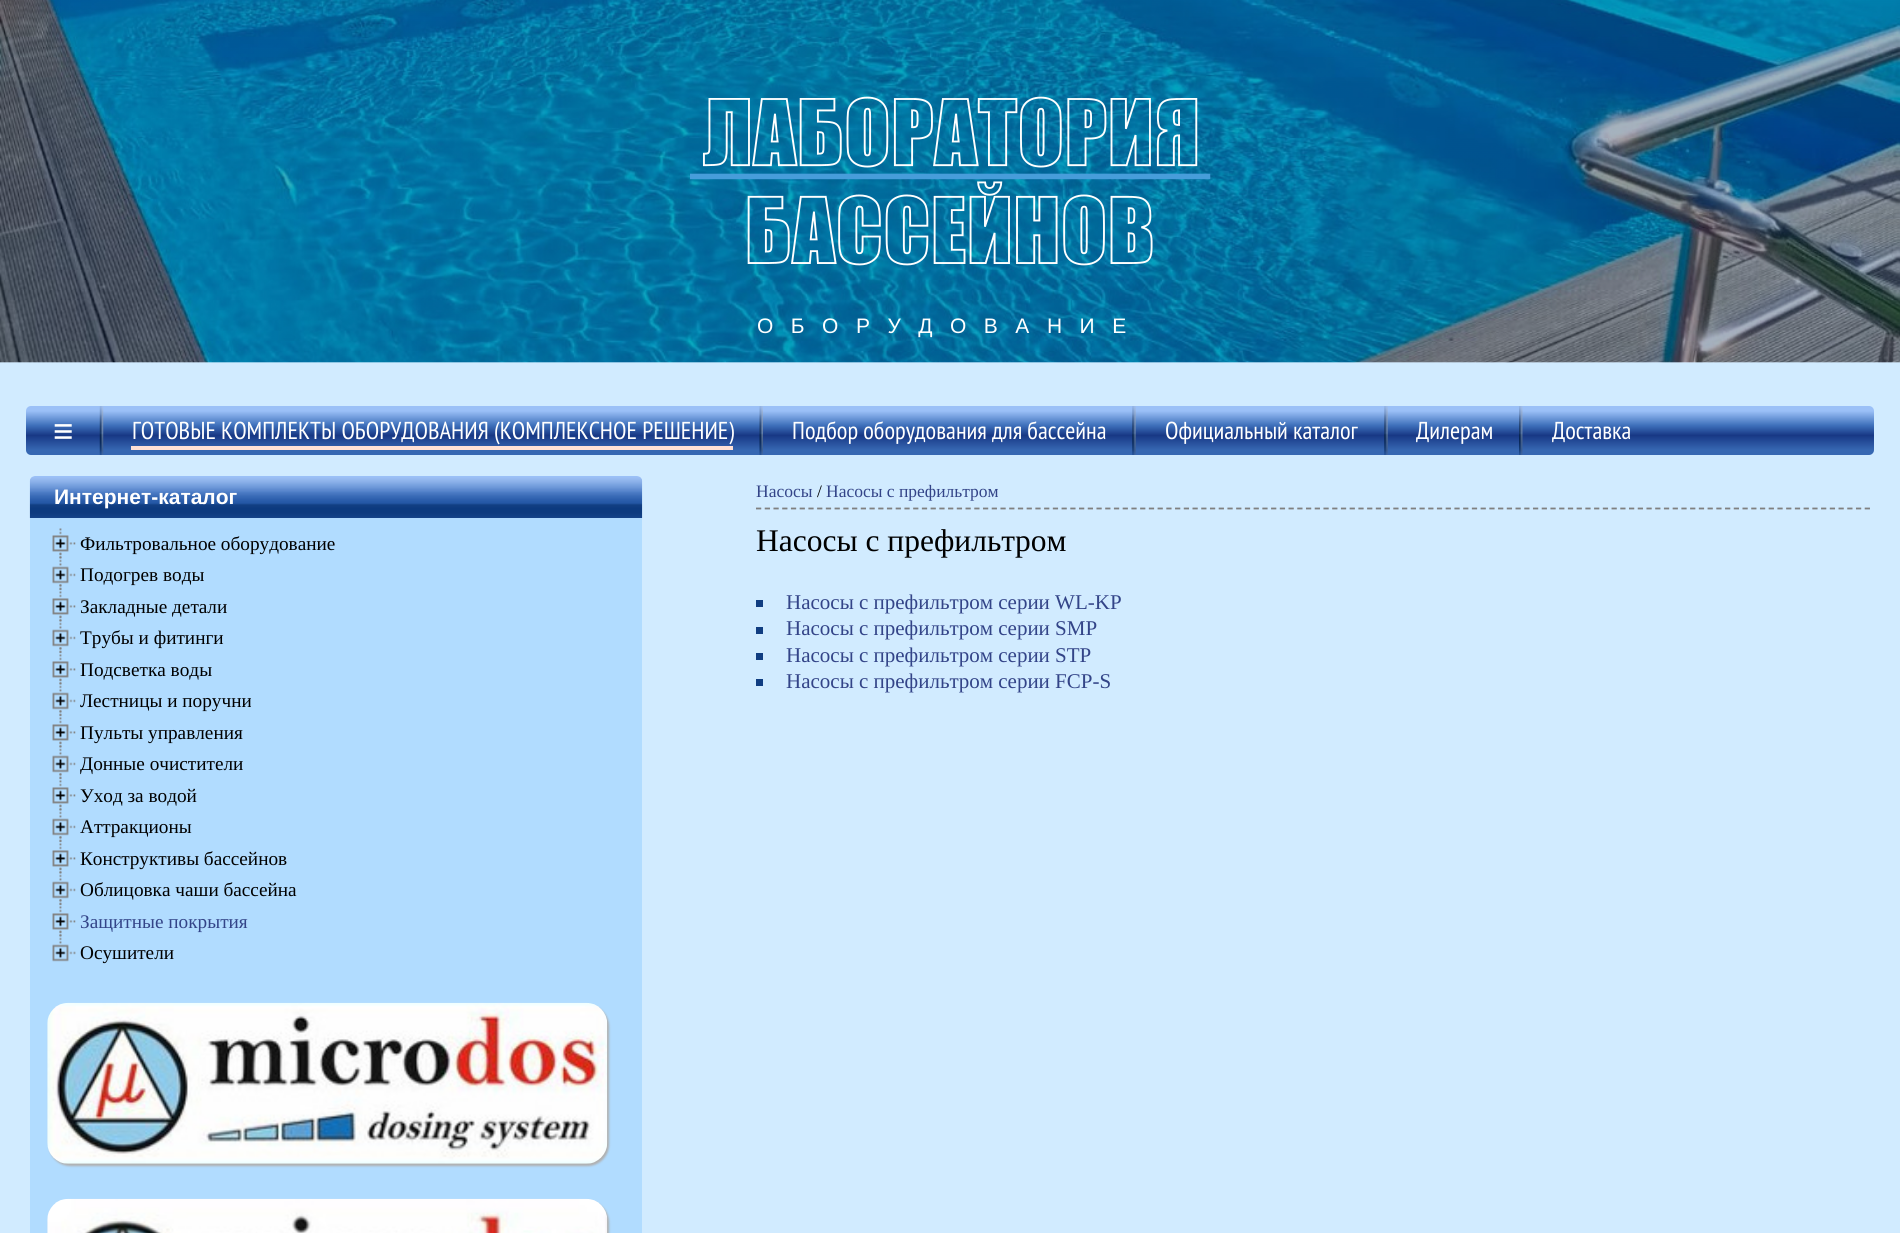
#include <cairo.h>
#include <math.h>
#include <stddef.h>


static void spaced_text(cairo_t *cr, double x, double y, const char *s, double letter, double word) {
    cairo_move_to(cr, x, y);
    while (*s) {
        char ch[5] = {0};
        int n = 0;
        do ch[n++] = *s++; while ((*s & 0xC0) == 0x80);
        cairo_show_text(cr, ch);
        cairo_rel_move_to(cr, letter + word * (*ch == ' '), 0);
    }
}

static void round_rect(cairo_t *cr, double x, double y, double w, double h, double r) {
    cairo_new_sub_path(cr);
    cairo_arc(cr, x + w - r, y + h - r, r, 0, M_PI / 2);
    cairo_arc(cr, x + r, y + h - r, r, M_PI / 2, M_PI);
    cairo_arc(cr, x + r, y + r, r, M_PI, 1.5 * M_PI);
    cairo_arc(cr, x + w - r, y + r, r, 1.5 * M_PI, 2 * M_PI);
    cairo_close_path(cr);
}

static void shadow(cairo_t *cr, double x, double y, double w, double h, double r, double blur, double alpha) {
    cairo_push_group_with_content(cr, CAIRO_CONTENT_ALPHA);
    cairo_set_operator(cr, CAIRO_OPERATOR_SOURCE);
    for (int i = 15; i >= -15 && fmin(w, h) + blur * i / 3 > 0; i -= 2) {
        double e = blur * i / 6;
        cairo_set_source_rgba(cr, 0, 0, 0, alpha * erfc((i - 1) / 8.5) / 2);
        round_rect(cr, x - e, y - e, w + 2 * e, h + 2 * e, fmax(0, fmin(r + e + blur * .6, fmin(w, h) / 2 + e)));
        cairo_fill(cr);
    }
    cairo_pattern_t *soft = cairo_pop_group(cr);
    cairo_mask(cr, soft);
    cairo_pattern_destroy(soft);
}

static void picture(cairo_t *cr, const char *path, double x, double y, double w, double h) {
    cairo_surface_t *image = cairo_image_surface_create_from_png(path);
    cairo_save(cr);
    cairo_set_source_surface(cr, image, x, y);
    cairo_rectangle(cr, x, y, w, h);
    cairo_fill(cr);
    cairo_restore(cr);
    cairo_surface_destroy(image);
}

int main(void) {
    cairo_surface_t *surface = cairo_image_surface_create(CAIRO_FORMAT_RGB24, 1900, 1233);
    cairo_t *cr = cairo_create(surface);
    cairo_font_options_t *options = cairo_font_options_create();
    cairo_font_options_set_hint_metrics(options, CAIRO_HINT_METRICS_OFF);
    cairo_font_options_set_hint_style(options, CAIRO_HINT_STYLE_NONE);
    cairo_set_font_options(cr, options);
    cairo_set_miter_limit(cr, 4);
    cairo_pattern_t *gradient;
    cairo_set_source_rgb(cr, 0.82, 0.918, 1);
    cairo_paint(cr);
    picture(cr, "img1.png", 0, 0, 1900, 363);
    picture(cr, "img2.png", 690, 96, 521, 170);
    cairo_select_font_face(cr, "Liberation Sans", CAIRO_FONT_SLANT_NORMAL, CAIRO_FONT_WEIGHT_NORMAL);
    cairo_set_font_size(cr, 21);
    cairo_set_source_rgb(cr, 1, 1, 1);
    spaced_text(cr, 757, 333, "ОБОРУДОВАНИЕ", 17.5, 0);
    gradient = cairo_pattern_create_linear(950, 455, 950, 406);
    cairo_pattern_add_color_stop_rgba(gradient, 0.1, 0.212, 0.404, 0.698, 1);
    cairo_pattern_add_color_stop_rgba(gradient, 0.4, 0.094, 0.22, 0.522, 1);
    cairo_pattern_add_color_stop_rgba(gradient, 0.6, 0.239, 0.435, 0.729, 1);
    cairo_pattern_add_color_stop_rgba(gradient, 0.9, 0.608, 0.753, 0.969, 1);
    cairo_set_source(cr, gradient);
    cairo_pattern_destroy(gradient);
    round_rect(cr, 26, 406, 1848, 49, 5);
    cairo_fill(cr);
    cairo_set_font_size(cr, 35);
    cairo_set_source_rgb(cr, 1, 1, 1);
    cairo_move_to(cr, 53, 443);
    cairo_show_text(cr, "≡");
    picture(cr, "img3.png", 99, 406, 5, 49);
    cairo_select_font_face(cr, "PT Sans Narrow", CAIRO_FONT_SLANT_NORMAL, CAIRO_FONT_WEIGHT_NORMAL);
    cairo_set_font_size(cr, 24.5);
    cairo_move_to(cr, 132, 439);
    cairo_show_text(cr, "ГОТОВЫЕ КОМПЛЕКТЫ ОБОРУДОВАНИЯ (КОМПЛЕКСНОЕ РЕШЕНИЕ)");
    cairo_set_source_rgb(cr, 1, 0.878, 0.835);
    cairo_rectangle(cr, 131, 446, 602, 4);
    cairo_fill(cr);
    picture(cr, "img4.png", 759, 406, 4, 49);
    cairo_set_source_rgb(cr, 1, 1, 1);
    cairo_move_to(cr, 792, 439);
    cairo_show_text(cr, "Подбор оборудования для бассейна");
    picture(cr, "img5.png", 1132, 406, 4, 49);
    cairo_move_to(cr, 1165, 439);
    cairo_show_text(cr, "Официальный каталог");
    picture(cr, "img5.png", 1384, 406, 4, 49);
    cairo_move_to(cr, 1416, 439);
    cairo_show_text(cr, "Дилерам");
    picture(cr, "img6.png", 1519, 406, 4, 49);
    cairo_move_to(cr, 1552, 439);
    cairo_show_text(cr, "Доставка");
    picture(cr, "img7.png", 29, 476, 614, 42);
    cairo_select_font_face(cr, "Liberation Sans", CAIRO_FONT_SLANT_NORMAL, CAIRO_FONT_WEIGHT_BOLD);
    cairo_set_font_size(cr, 21);
    cairo_move_to(cr, 54, 504);
    cairo_show_text(cr, "Интернет-каталог");
    cairo_set_source_rgb(cr, 0.694, 0.863, 1);
    cairo_rectangle(cr, 30, 518, 612, 715);
    cairo_fill(cr);
    picture(cr, "img8.png", 59, 528, 3, 31);
    picture(cr, "img9.png", 52, 535, 24, 24);
    cairo_select_font_face(cr, "Liberation Serif", CAIRO_FONT_SLANT_NORMAL, CAIRO_FONT_WEIGHT_NORMAL);
    cairo_set_font_size(cr, 19.25);
    cairo_set_source_rgb(cr, 0, 0, 0);
    cairo_move_to(cr, 80, 550);
    cairo_show_text(cr, "Фильтровальное оборудование");
    picture(cr, "img10.png", 59, 559, 3, 31);
    picture(cr, "img11.png", 52, 566, 24, 25);
    cairo_move_to(cr, 80, 581);
    cairo_show_text(cr, "Подогрев воды");
    picture(cr, "img8.png", 59, 591, 3, 31);
    picture(cr, "img9.png", 52, 598, 24, 24);
    cairo_move_to(cr, 80, 613);
    cairo_show_text(cr, "Закладные детали");
    picture(cr, "img10.png", 59, 622, 3, 31);
    picture(cr, "img11.png", 52, 629, 24, 25);
    cairo_move_to(cr, 80, 644);
    cairo_show_text(cr, "Трубы и фитинги");
    picture(cr, "img8.png", 59, 654, 3, 31);
    picture(cr, "img9.png", 52, 661, 24, 24);
    cairo_move_to(cr, 80, 676);
    cairo_show_text(cr, "Подсветка воды");
    picture(cr, "img10.png", 59, 685, 3, 31);
    picture(cr, "img11.png", 52, 692, 24, 25);
    cairo_move_to(cr, 80, 707);
    cairo_show_text(cr, "Лестницы и поручни");
    picture(cr, "img8.png", 59, 717, 3, 31);
    picture(cr, "img9.png", 52, 724, 24, 24);
    cairo_move_to(cr, 80, 739);
    cairo_show_text(cr, "Пульты управления");
    picture(cr, "img10.png", 59, 748, 3, 31);
    picture(cr, "img11.png", 52, 755, 24, 25);
    cairo_move_to(cr, 80, 770);
    cairo_show_text(cr, "Донные очистители");
    picture(cr, "img8.png", 59, 780, 3, 31);
    picture(cr, "img9.png", 52, 787, 24, 24);
    cairo_move_to(cr, 80, 802);
    cairo_show_text(cr, "Уход за водой");
    picture(cr, "img10.png", 59, 811, 3, 31);
    picture(cr, "img11.png", 52, 818, 24, 25);
    cairo_move_to(cr, 80, 833);
    cairo_show_text(cr, "Аттракционы");
    picture(cr, "img8.png", 59, 843, 3, 31);
    picture(cr, "img9.png", 52, 850, 24, 24);
    cairo_move_to(cr, 80, 865);
    cairo_show_text(cr, "Конструктивы бассейнов");
    picture(cr, "img10.png", 59, 874, 3, 31);
    picture(cr, "img11.png", 52, 881, 24, 25);
    cairo_move_to(cr, 80, 896);
    cairo_show_text(cr, "Облицовка чаши бассейна");
    picture(cr, "img8.png", 59, 906, 3, 31);
    picture(cr, "img9.png", 52, 913, 24, 24);
    cairo_set_source_rgb(cr, 0.2, 0.267, 0.533);
    cairo_move_to(cr, 80, 928);
    cairo_show_text(cr, "Защитные покрытия");
    picture(cr, "img12.png", 52, 937, 24, 25);
    cairo_set_source_rgb(cr, 0, 0, 0);
    cairo_move_to(cr, 80, 959);
    cairo_show_text(cr, "Осушители");
    cairo_set_source_rgb(cr, 0.69, 0.69, 0.69);
    shadow(cr, 49, 1005, 560, 161, 21, 1, 1);
    picture(cr, "img13.png", 47, 1002, 561, 162);
    shadow(cr, 49, 1201, 560, 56, 21, 1, 1);
    picture(cr, "img14.png", 47, 1198, 561, 35);
    cairo_new_path(cr);
    cairo_move_to(cr, 756, 508.5);
    cairo_line_to(cr, 1871, 508.5);
    cairo_set_source_rgb(cr, 0.502, 0.502, 0.502);
    cairo_set_line_width(cr, 1.8);
    cairo_set_dash(cr, (double[]){5.25, 3.48}, 2, 0);
    cairo_stroke(cr);
    cairo_set_font_size(cr, 17.5);
    cairo_set_source_rgb(cr, 0.2, 0.267, 0.533);
    cairo_move_to(cr, 756, 497);
    cairo_show_text(cr, "Насосы");
    cairo_set_source_rgb(cr, 0, 0, 0);
    cairo_move_to(cr, 817, 497);
    cairo_show_text(cr, "/");
    cairo_set_source_rgb(cr, 0.2, 0.267, 0.533);
    cairo_move_to(cr, 826, 497);
    cairo_show_text(cr, "Насосы с префильтром");
    cairo_set_font_size(cr, 31.5);
    cairo_set_source_rgb(cr, 0, 0, 0);
    cairo_move_to(cr, 756, 551);
    cairo_show_text(cr, "Насосы с префильтром");
    cairo_set_source_rgb(cr, 0.063, 0.239, 0.506);
    cairo_rectangle(cr, 756, 600, 7, 7);
    cairo_fill(cr);
    cairo_set_font_size(cr, 21);
    cairo_set_source_rgb(cr, 0.2, 0.267, 0.533);
    cairo_move_to(cr, 786, 609);
    cairo_show_text(cr, "Насосы с префильтром серии WL-KP");
    cairo_set_source_rgb(cr, 0.063, 0.239, 0.506);
    cairo_rectangle(cr, 756, 627, 7, 7);
    cairo_fill(cr);
    cairo_set_source_rgb(cr, 0.2, 0.267, 0.533);
    cairo_move_to(cr, 786, 635);
    cairo_show_text(cr, "Насосы с префильтром серии SMP");
    cairo_set_source_rgb(cr, 0.063, 0.239, 0.506);
    cairo_rectangle(cr, 756, 653, 7, 7);
    cairo_fill(cr);
    cairo_set_source_rgb(cr, 0.2, 0.267, 0.533);
    cairo_move_to(cr, 786, 662);
    cairo_show_text(cr, "Насосы с префильтром серии STP");
    cairo_set_source_rgb(cr, 0.063, 0.239, 0.506);
    cairo_rectangle(cr, 756, 679, 7, 7);
    cairo_fill(cr);
    cairo_set_source_rgb(cr, 0.2, 0.267, 0.533);
    cairo_move_to(cr, 786, 688);
    cairo_show_text(cr, "Насосы с префильтром серии FCP-S");
    cairo_surface_write_to_png(surface, "page.png");
    cairo_font_options_destroy(options);
    cairo_destroy(cr);
    cairo_surface_destroy(surface);
    return 0;
}
